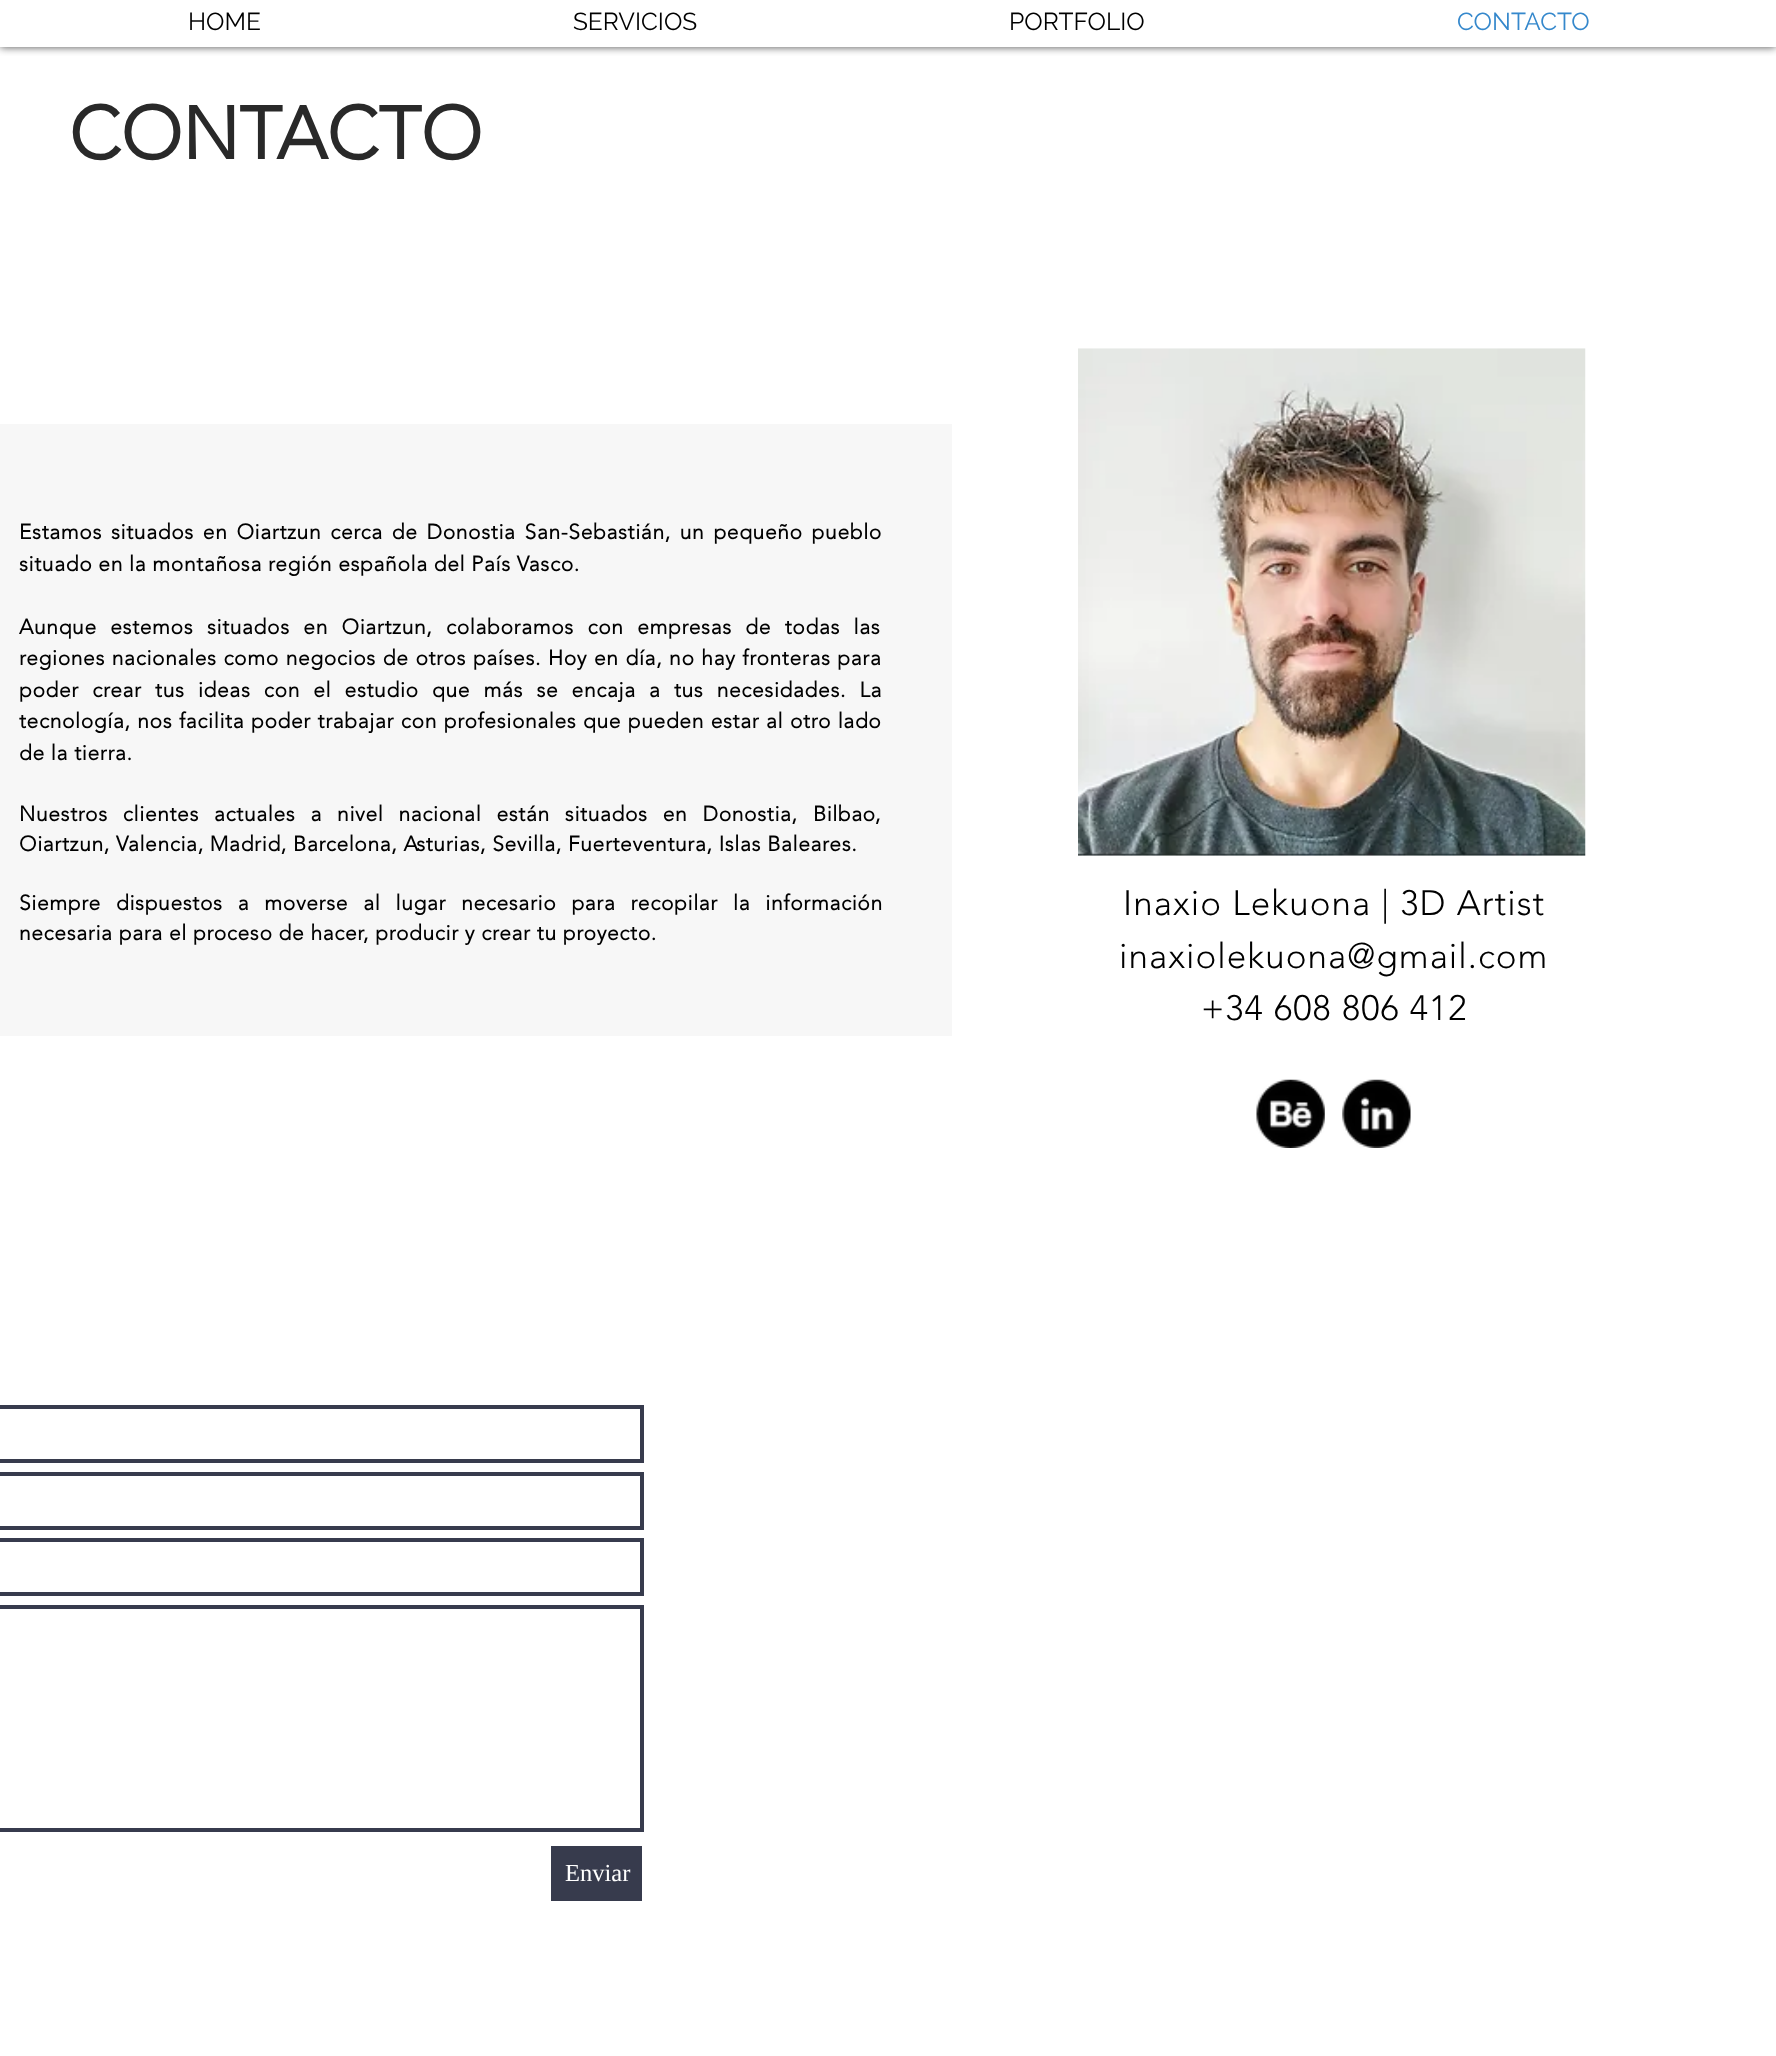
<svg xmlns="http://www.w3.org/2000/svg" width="1776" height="2056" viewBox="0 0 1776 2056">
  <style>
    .t1 { font: 24.5px Raleway; fill: #000; }
    .t2 { font: 24.5px Raleway; fill: #3588cc; }
    .t3 { font: bold 73.5px 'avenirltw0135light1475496'; fill: #292929; }
    .t4 { font: bold 21px 'avenirltw0135light1475496'; letter-spacing: 0.63px; fill: #000; }
    .t5 { font: bold 21px 'avenirltw0135light1475496'; letter-spacing: 0.5px; fill: #000; }
    .t6 { font: 300 35px 'avenirltw0135light1475496'; letter-spacing: 1.05px; fill: #000; }
    .t7 { font: 24.5px Liberation Serif; fill: #fff; }
  </style>
  <defs>
    <clipPath id="clip1"><rect x="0" y="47" width="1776" height="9"/></clipPath>
  </defs>
  <rect width="100%" height="100%" fill="#fff"/>
  <g clip-path="url(#clip1)">
    <rect x="0" y="0" width="1776" height="47" fill="#000000b3" filter="blur(4.5px)"/>
  </g>
  <text x="188" y="30" class="t1">HOME</text>
  <text x="573" y="30" class="t1">SERVICIOS</text>
  <text x="1009" y="30" class="t1">PORTFOLIO</text>
  <text x="1457" y="30" class="t2">CONTACTO</text>
  <text x="69" y="159" class="t3">CONTACTO</text>
  <rect x="0" y="424" width="952" height="612" fill="#f7f7f7"/>
  <text x="19" y="539" word-spacing="2.9" class="t4">Estamos situados en Oiartzun cerca de Donostia San-Sebastián, un pequeño pueblo</text>
  <text x="19" y="571" class="t4">situado en la montañosa región española del País Vasco.</text>
  <text x="19" y="634" word-spacing="7.5" class="t4">Aunque estemos situados en Oiartzun, colaboramos con empresas de todas las</text>
  <text x="19" y="665" word-spacing="0.75" class="t4">regiones nacionales como negocios de otros países. Hoy en día, no hay fronteras para</text>
  <text x="19" y="697" word-spacing="7.25" class="t4">poder crear tus ideas con el estudio que más se encaja a tus necesidades. La</text>
  <text x="19" y="728" word-spacing="0.6" class="t4">tecnología, nos facilita poder trabajar con profesionales que pueden estar al otro lado</text>
  <text x="19" y="760" class="t4">de la tierra.</text>
  <text x="19" y="821" word-spacing="9" class="t4">Nuestros clientes actuales a nivel nacional están situados en Donostia,</text>
  <text x="813" y="821" class="t5">Bilbao</text>
  <text x="875" y="821" class="t4">,</text>
  <text x="19" y="851" class="t4">Oiartzun, Valencia, Madrid, Barcelona, Asturias, Sevilla, Fuerteventura, Islas Baleares.</text>
  <text x="19" y="910" word-spacing="9" class="t4">Siempre dispuestos a moverse al lugar necesario para recopilar la información</text>
  <text x="19" y="940" class="t4">necesaria para el proceso de hacer, producir y crear tu proyecto.</text>
  <image x="1078" y="348" width="508" height="508" href="images/1.png"/>
  <text x="1123" y="915" class="t6">Inaxio Lekuona | 3D Artist</text>
  <text x="1119" y="968" class="t6">inaxiolekuona@gmail.com</text>
  <text x="1201" y="1020" class="t6">+34 608 806 412</text>
  <image x="1256" y="1079" width="69" height="69" href="images/2.png"/>
  <image x="1342" y="1079" width="69" height="69" href="images/3.png"/>
  <rect x="-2" y="1407" width="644" height="54" fill="none" stroke="#373b4d" stroke-width="4"/>
  <rect x="-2" y="1474" width="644" height="54" fill="none" stroke="#373b4d" stroke-width="4"/>
  <rect x="-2" y="1540" width="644" height="54" fill="none" stroke="#373b4d" stroke-width="4"/>
  <rect x="-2" y="1607" width="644" height="223" fill="none" stroke="#373b4d" stroke-width="4"/>
  <rect x="551" y="1846" width="91" height="55" fill="#373b4d"/>
  <text x="565" y="1881" class="t7">Enviar</text>
</svg>
